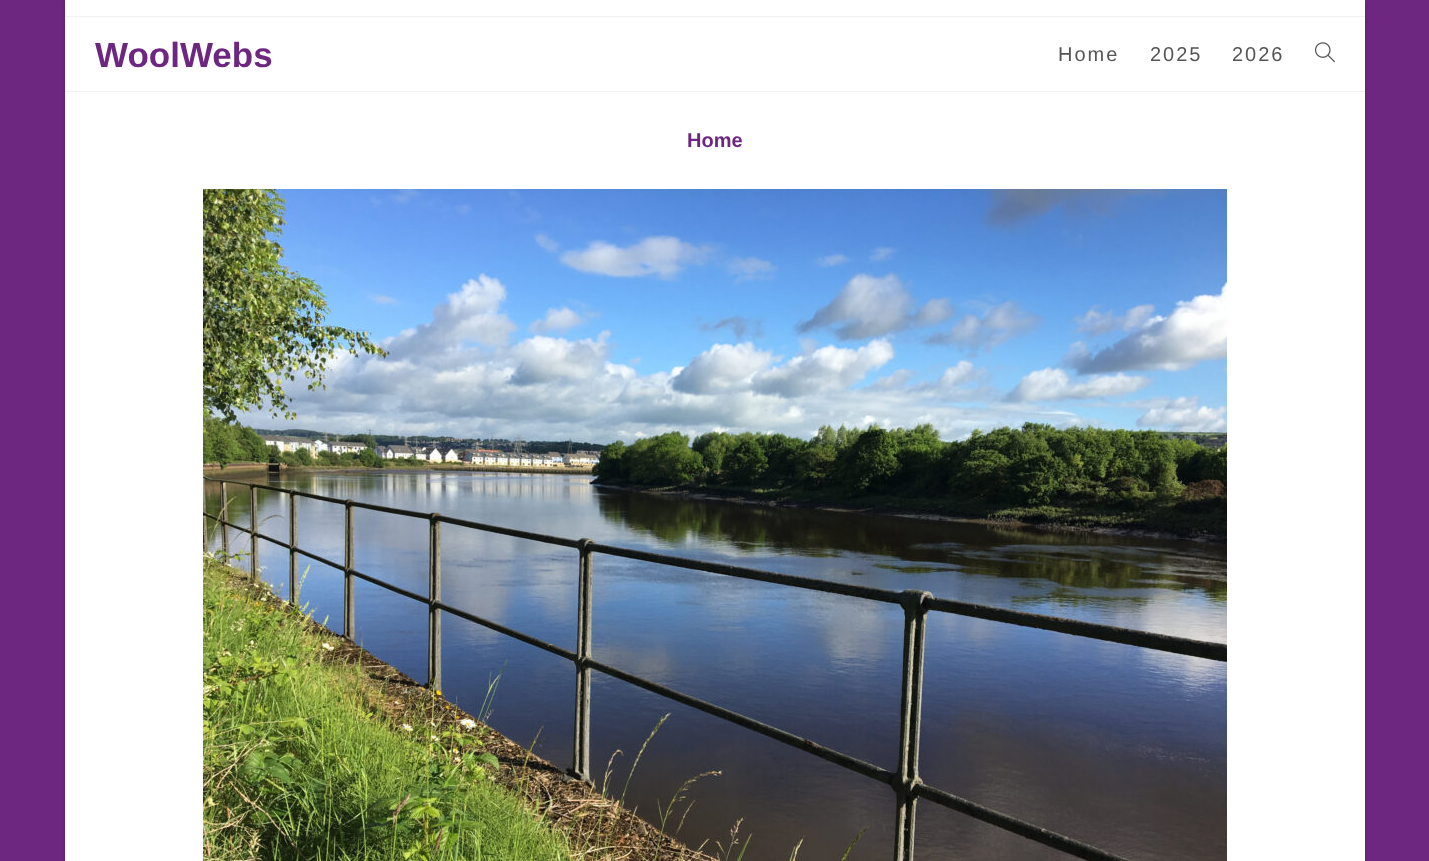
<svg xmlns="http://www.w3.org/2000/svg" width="1429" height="861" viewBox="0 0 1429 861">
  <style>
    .t1 { font: bold 35px Liberation Sans; fill: #6d2780; }
    .t2 { font: 20px Liberation Sans; letter-spacing: 2px; fill: #555; }
    .t3 { font: bold 20px Liberation Sans; fill: #6d2780; }
  </style>
  <rect width="100%" height="100%" fill="#6d2780"/>
  <rect x="65" y="1" width="1300" height="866" fill="#00000026" filter="blur(2px)"/>
  <rect x="65" y="0" width="1300" height="861" fill="#fff"/>
  <rect x="65" y="16" width="1300" height="1" fill="#f1f1f1"/>
  <rect x="65" y="91" width="1300" height="1" fill="#f1f1f1"/>
  <text x="95" y="67" class="t1">WoolWebs</text>
  <text x="1058" y="61" class="t2">Home</text>
  <text x="1150" y="61" class="t2">2025</text>
  <text x="1232" y="61" class="t2">2026</text>
  <image x="1315" y="42" width="20" height="21" href="images/1.png"/>
  <text x="687" y="147" class="t3">Home</text>
  <image x="203" y="189" width="1024" height="672" href="images/2.png"/>
</svg>
